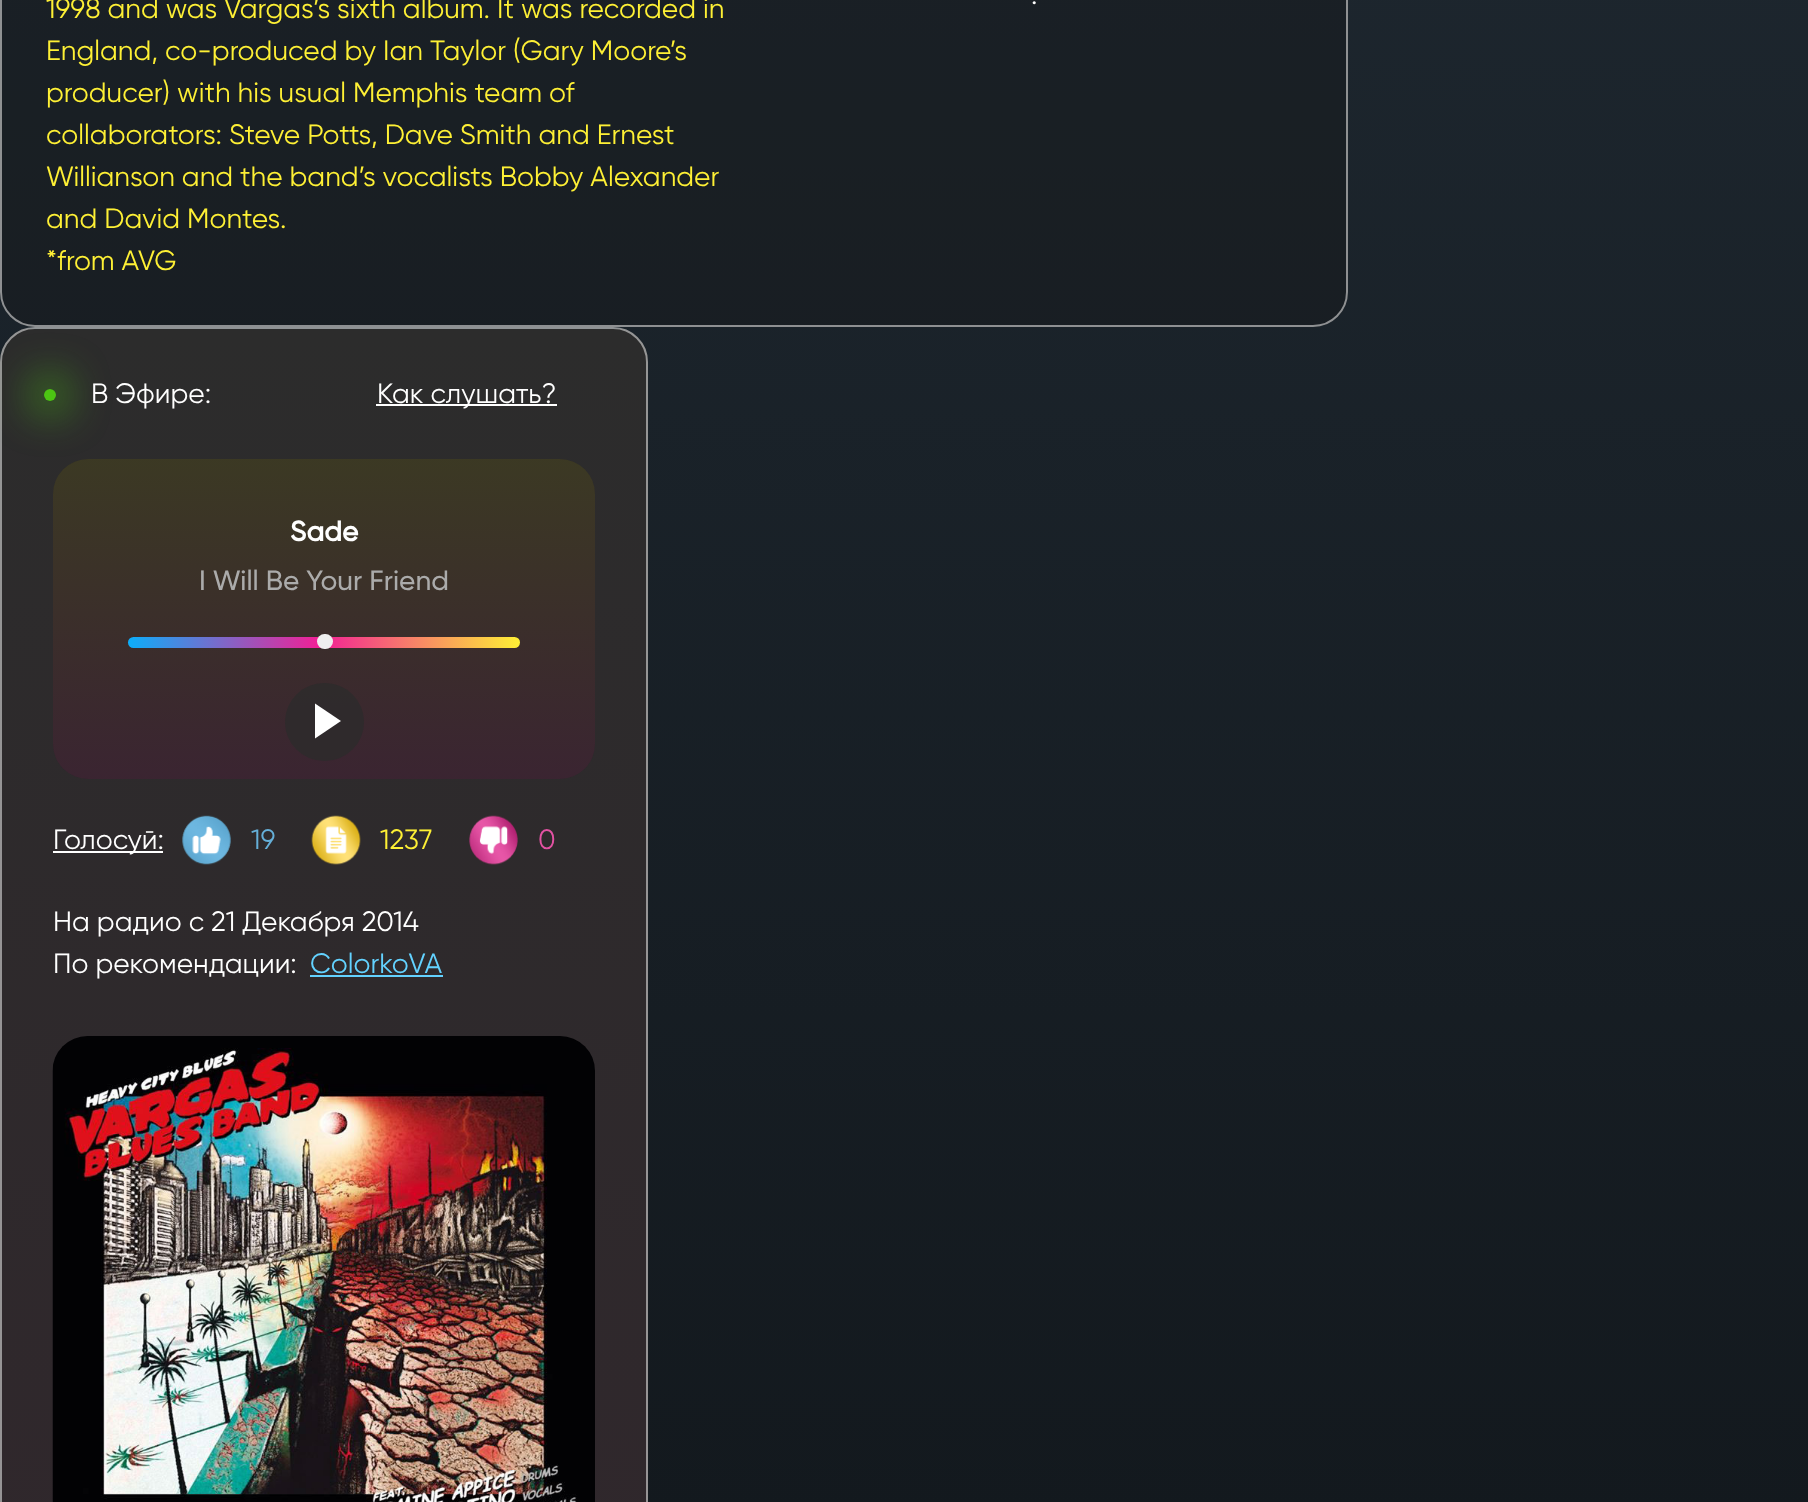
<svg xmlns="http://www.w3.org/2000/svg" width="1808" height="1502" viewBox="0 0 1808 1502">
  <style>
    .t1 { font: 28px Gilroy; fill: #fef035; }
    .t2 { font: 28px Gilroy; fill: #fff; }
    .t3 { font: bold 28px Gilroy; fill: #fff; }
    .t4 { font: 500 28px Gilroy; fill: #ababab; }
    .t5 { font: 28px Gilroy; fill: #65afd8; }
    .t6 { font: 28px Gilroy; fill: #e352a3; }
    .t7 { font: 28px Gilroy; fill: #63d2ff; }
  </style>
  <defs>
    <linearGradient id="g1" gradientUnits="userSpaceOnUse" x1="905" y1="-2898" x2="905" y2="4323"><stop offset="0" stop-color="#2e3d4a"/><stop offset="1" stop-color="#020202"/></linearGradient>
    <clipPath id="clip1"><rect x="0" y="327" width="648" height="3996" rx="35"/></clipPath>
    <linearGradient id="g2" gradientUnits="userSpaceOnUse" x1="324" y1="329" x2="324" y2="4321"><stop offset="0" stop-color="#2c2c2c"/><stop offset="1" stop-color="#381d2c"/></linearGradient>
    <linearGradient id="g3" gradientUnits="userSpaceOnUse" x1="324" y1="459" x2="324" y2="779"><stop offset="0" stop-color="#fceb0c" stop-opacity="0.1"/><stop offset="1" stop-color="#f22096" stop-opacity="0.1"/></linearGradient>
    <clipPath id="clip2"><path d="M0 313H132V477H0ZM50 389C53.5 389 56 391.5 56 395C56 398.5 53.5 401 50 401C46.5 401 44 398.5 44 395C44 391.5 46.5 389 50 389Z" clip-rule="evenodd"/></clipPath>
    <linearGradient id="g4" gradientUnits="userSpaceOnUse" x1="118" y1="642" x2="520" y2="642"><stop offset="0" stop-color="#00b5ff"/><stop offset="0.5" stop-color="#f22096"/><stop offset="1" stop-color="#fef035"/></linearGradient>
  </defs>
  <rect width="100%" height="100%" fill="#fff"/>
  <rect x="0" y="0" width="1808" height="1502" fill="url(#g1)"/>
  <rect x="0" y="-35" width="1348" height="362" rx="35" fill="#14161654"/>
  <rect x="1" y="-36" width="1346" height="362" rx="34" fill="none" stroke="#cacacaab" stroke-width="2"/>
  <text x="46" y="18" class="t1">1998 and was Vargas’s sixth album. It was recorded in</text>
  <text x="46" y="60" class="t1">England, co-produced by Ian Taylor (Gary Moore’s</text>
  <text x="46" y="102" class="t1">producer) with his usual Memphis team of</text>
  <text x="46" y="144" class="t1">collaborators: Steve Potts, Dave Smith and Ernest</text>
  <text x="46" y="186" class="t1">Willianson and the band’s vocalists Bobby Alexander</text>
  <text x="46" y="228" class="t1">and David Montes.</text>
  <text x="46" y="270" class="t1">*from AVG</text>
  <text x="1031" y="4" class="t2">.</text>
  <g clip-path="url(#clip1)">
    <rect x="0" y="329" width="648" height="1173" fill="url(#g2)"/>
  </g>
  <rect x="1" y="328" width="646" height="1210" rx="34" fill="none" stroke="#cacacaab" stroke-width="2"/>
  <rect x="53" y="459" width="542" height="320" rx="35" fill="#262526"/>
  <rect x="53" y="459" width="542" height="320" rx="35" fill="url(#g3)"/>
  <g clip-path="url(#clip2)">
    <rect x="35" y="380" width="30" height="30" rx="15" fill="#4cc513" filter="blur(22px)"/>
  </g>
  <circle cx="50" cy="395" r="6" fill="#4cc513"/>
  <text x="91" y="403" class="t2">В Эфире:</text>
  <rect x="376" y="404" width="181" height="2" fill="#fff"/>
  <text x="377" y="403" class="t2">Как слушать?</text>
  <text x="290" y="541" class="t3">Sade</text>
  <text x="199" y="590" class="t4">I Will Be Your Friend</text>
  <rect x="128" y="637" width="392" height="11" rx="5.5" fill="url(#g4)"/>
  <rect x="317" y="634" width="16" height="15" rx="7.5" fill="#efefef"/>
  <rect x="285" y="683" width="79" height="78" rx="39" fill="#2c2c2cc2"/>
  <path d="M315 738.5V703.5L341 721Z" fill="#fff"/>
  <rect x="53" y="851" width="110" height="2" fill="#fff"/>
  <text x="53" y="849" class="t2">Голосуй:</text>
  <image x="182" y="815" width="49" height="50" href="images/1.png"/>
  <text x="251" y="849" class="t5">19</text>
  <image x="311" y="815" width="50" height="50" href="images/2.png"/>
  <text x="380" y="849" class="t1">1237</text>
  <image x="469" y="815" width="49" height="50" href="images/3.png"/>
  <text x="538" y="849" class="t6">0</text>
  <text x="53" y="931" class="t2">На радио с 21 Декабря 2014</text>
  <text x="53" y="973" class="t2">По рекомендации:</text>
  <text x="310" y="973" class="t7">ColorkoVA</text>
  <rect x="310" y="975" width="133" height="2" fill="#63d2ff"/>
  <image x="52" y="1036" width="543" height="466" href="images/4.png"/>
</svg>
